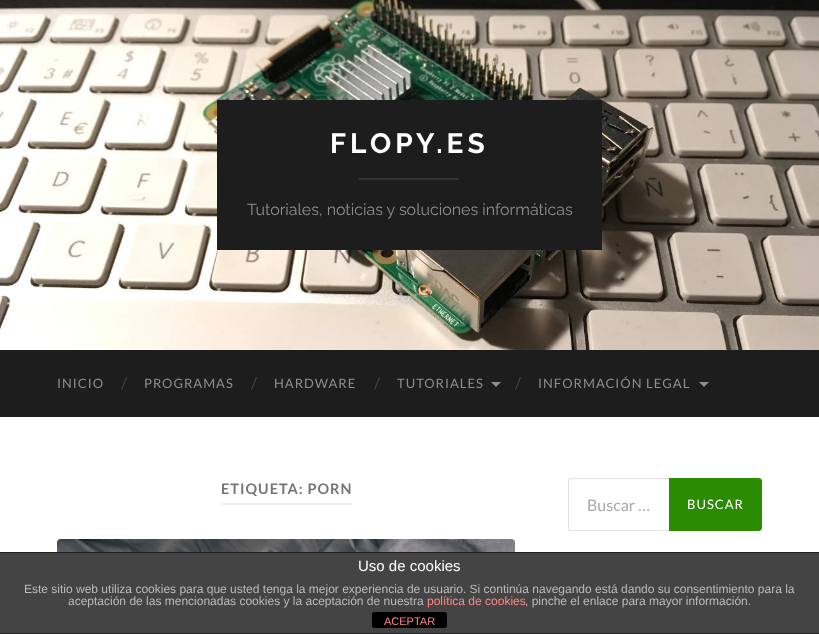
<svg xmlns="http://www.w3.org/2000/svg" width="819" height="634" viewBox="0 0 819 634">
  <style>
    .t1 { font: 100 28px Raleway; letter-spacing: 4px; fill: #fff; }
    .t2 { font: 100 16px 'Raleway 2'; fill: #8e8e8e; }
    .t3 { font: 13px Lato; letter-spacing: 1px; fill: #8e8e8e; }
    .t4 { font: 16px Lato; fill: #444; }
    .t5 { font: bold 14.5px Lato; letter-spacing: 1px; fill: #767676; }
    .t6 { font: 16px Lato; fill: #a9a9a9; }
    .t7 { font: 13px Lato; letter-spacing: 1px; fill: #fff; }
    .t8 { font: 15px Liberation Sans; fill: #fff; }
    .t9 { font: 12px Liberation Sans; fill: #bbb; }
    .t10 { font: 12px Liberation Sans; fill: #f88; }
    .t11 { font: 11px Liberation Sans; fill: #f88; }
  </style>
  <rect width="100%" height="100%" fill="#fff"/>
  <image x="0" y="0" width="819" height="350" href="images/1.png"/>
  <rect x="217" y="100" width="385" height="150" fill="#1d1d1d"/>
  <text x="330" y="153" class="t1">FLOPY.ES</text>
  <rect x="359" y="178" width="100" height="2" fill="#343434"/>
  <text x="247" y="215" class="t2">Tutoriales, noticias y soluciones informáticas</text>
  <rect x="0" y="350" width="819" height="67" fill="#1d1d1d"/>
  <text x="57" y="388" class="t3">INICIO</text>
  <text x="121" y="389" class="t4">/</text>
  <text x="144" y="388" class="t3">PROGRAMAS</text>
  <text x="251" y="389" class="t4">/</text>
  <text x="274" y="388" class="t3">HARDWARE</text>
  <text x="374" y="389" class="t4">/</text>
  <text x="397" y="388" class="t3">TUTORIALES</text>
  <path d="M491 382H501L496 387Z" fill="#8e8e8e"/>
  <text x="515" y="389" class="t4">/</text>
  <text x="538" y="388" class="t3">INFORMACIÓN LEGAL</text>
  <path d="M699 382H709L704 387Z" fill="#8e8e8e"/>
  <rect x="221" y="503" width="131" height="2" fill="#eee"/>
  <text x="221" y="494" class="t5">ETIQUETA: PORN</text>
  <image x="57" y="539" width="458" height="13" href="images/2.png"/>
  <path d="M571 478H669V531H571C569 531 568 530 568 528V481C568 479 569 478 571 478ZM571 479H669V530H571C570 530 569 529 569 528V481C569 480 570 479 571 479Z" fill="#e1e1e3" fill-rule="evenodd"/>
  <text x="587" y="511" class="t6">Buscar …</text>
  <path d="M669 478H759C760.5 478 762 479.5 762 481V528C762 529.5 760.5 531 759 531H669Z" fill="#2b8c01"/>
  <text x="687" y="509" class="t7">BUSCAR</text>
  <rect x="0" y="553" width="819" height="80" fill="#444"/>
  <rect x="0" y="552" width="819" height="1" fill="#222"/>
  <rect x="0" y="633" width="819" height="1" fill="#222"/>
  <text x="358" y="571" class="t8">Uso de cookies</text>
  <text x="24" y="593" class="t9">Este sitio web utiliza cookies para que usted tenga la mejor experiencia de usuario. Si continúa navegando está dando su consentimiento para la</text>
  <text x="68" y="605" class="t9">aceptación de las mencionadas cookies y la aceptación de nuestra</text>
  <text x="427" y="605" class="t10">política de cookies</text>
  <text x="525" y="605" class="t9">, pinche el enlace para mayor información.</text>
  <rect x="372" y="612" width="75" height="16" rx="3" fill="#000"/>
  <text x="384" y="625" class="t11">ACEPTAR</text>
</svg>
